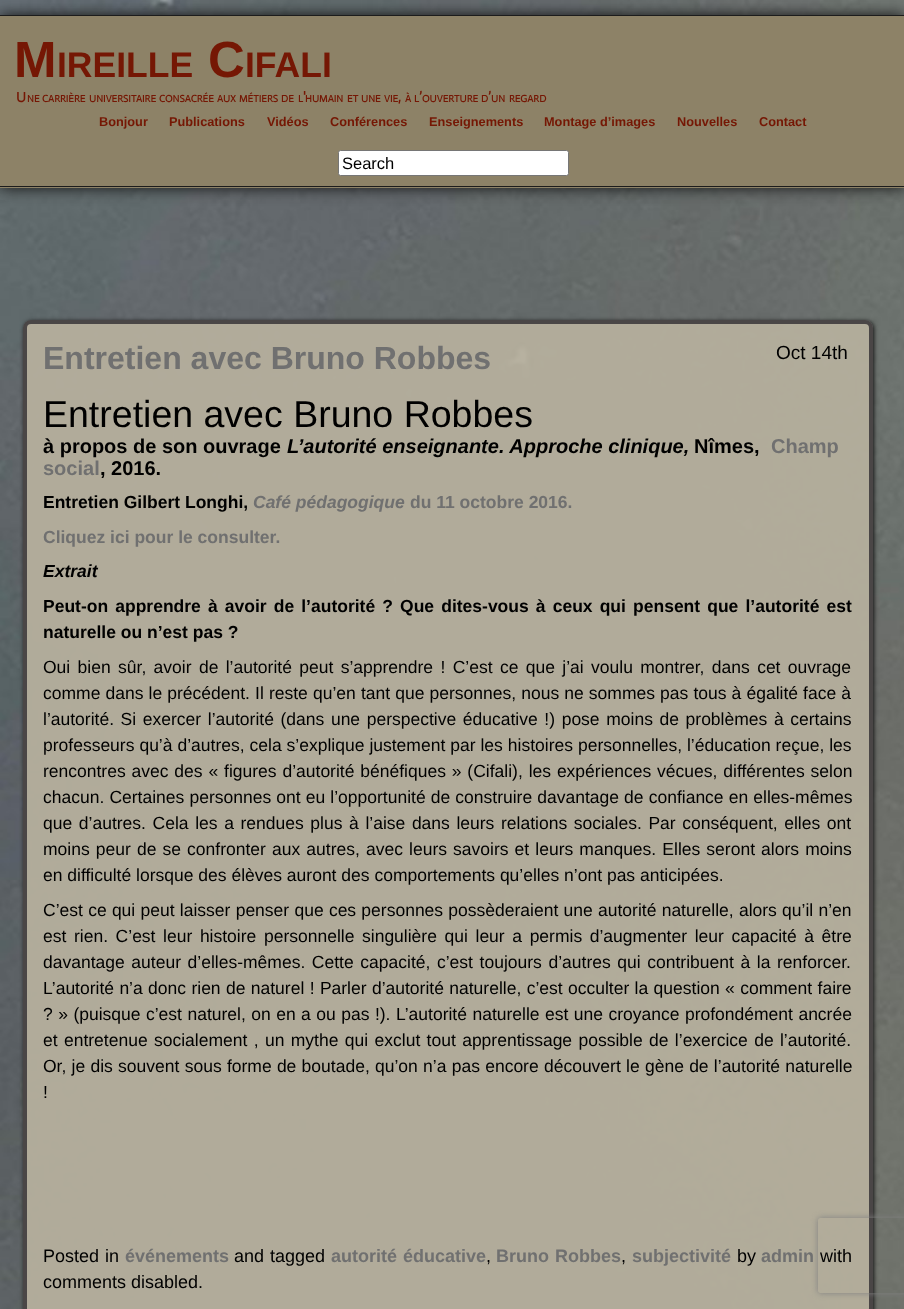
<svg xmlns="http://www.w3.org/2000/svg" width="904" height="1309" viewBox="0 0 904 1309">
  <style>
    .t1 { font: bold 51px Liberation Sans; fill: #751704; }
    .t2 { font: bold 35.5px Liberation Sans; fill: #751704; }
    .t3 { font: bold 14px Actor; fill: #751704; }
    .t4 { font: bold 10px Actor; fill: #751704; }
    .t5 { font: bold 12.75px Liberation Sans; fill: #751704; }
    .t6 { font: 16.5px Liberation Sans; fill: #000; }
    .t7 { font: bold 32px Liberation Sans; fill: #707070; }
    .t8 { font: 19px Liberation Sans; fill: #000; }
    .t9 { font: 37.5px Liberation Sans; fill: #000; }
    .t10 { font: bold 20px Liberation Sans; fill: #000; }
    .t11 { font: italic bold 20px Liberation Sans; fill: #000; }
    .t12 { font: bold 20px Liberation Sans; fill: #707070; }
    .t13 { font: bold 17.5px Liberation Sans; fill: #000; }
    .t14 { font: italic bold 17.5px Liberation Sans; fill: #707070; }
    .t15 { font: bold 17.5px Liberation Sans; fill: #707070; }
    .t16 { font: italic bold 17.5px Liberation Sans; fill: #000; }
    .t17 { font: 17.5px Liberation Sans; fill: #000; }
    .t18 { font: 18px Liberation Sans; fill: #000; }
    .t19 { font: bold 18px Liberation Sans; fill: #707070; }
  </style>
  <defs>
    <clipPath id="clip1"><path d="M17 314H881V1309H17ZM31 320H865C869.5 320 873 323.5 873 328V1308C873 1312.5 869.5 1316 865 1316H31C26.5 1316 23 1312.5 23 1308V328C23 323.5 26.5 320 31 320Z" clip-rule="evenodd"/></clipPath>
    <clipPath id="clip2"><path d="M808 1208H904V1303H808ZM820.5 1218H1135.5C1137 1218 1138 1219 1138 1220.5V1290.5C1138 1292 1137 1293 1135.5 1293H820.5C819 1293 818 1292 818 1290.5V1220.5C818 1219 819 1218 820.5 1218Z" clip-rule="evenodd"/></clipPath>
  </defs>
  <rect width="100%" height="100%" fill="#fff"/>
  <image x="0" y="0" width="904" height="1309" href="images/1.png"/>
  <rect x="0" y="15" width="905" height="173" fill="#111" filter="blur(7.5px)"/>
  <rect x="0" y="16" width="904" height="172" fill="#8d8267"/>
  <rect x="0" y="15" width="904" height="1" fill="#1c1c1c"/>
  <rect x="0" y="186" width="904" height="1" fill="#1c1c1c"/>
  <text x="14" y="77" class="t1">M</text>
  <text x="57" y="77" class="t2">IREILLE</text>
  <text x="208" y="77" class="t1">C</text>
  <text x="245" y="77" class="t2">IFALI</text>
  <text x="16" y="102" class="t3">U</text>
  <text x="27" y="102" class="t4">NE</text>
  <text x="42" y="102" class="t4">CARRIÈRE</text>
  <text x="89" y="102" class="t4">UNIVERSITAIRE</text>
  <text x="159" y="102" class="t4">CONSACRÉE</text>
  <text x="217" y="102" class="t4">AUX</text>
  <text x="239" y="102" class="t4">MÉTIERS</text>
  <text x="281" y="102" class="t4">DE</text>
  <text x="298" y="102" class="t4">L</text>
  <text x="303" y="102" class="t3">'</text>
  <text x="305" y="102" class="t4">HUMAIN</text>
  <text x="347" y="102" class="t4">ET</text>
  <text x="361" y="102" class="t4">UNE</text>
  <text x="384" y="102" class="t4">VIE</text>
  <text x="398" y="102" class="t3">,</text>
  <text x="405" y="102" class="t4">À</text>
  <text x="414" y="102" class="t4">L</text>
  <text x="419" y="102" class="t3">’</text>
  <text x="422" y="102" class="t4">OUVERTURE</text>
  <text x="481" y="102" class="t4">D</text>
  <text x="488" y="102" class="t3">’</text>
  <text x="491" y="102" class="t4">UN</text>
  <text x="509" y="102" class="t4">REGARD</text>
  <text x="99" y="126" class="t5">Bonjour</text>
  <text x="169" y="126" class="t5">Publications</text>
  <text x="267" y="126" class="t5">Vidéos</text>
  <text x="330" y="126" class="t5">Conférences</text>
  <text x="429" y="126" class="t5">Enseignements</text>
  <text x="544" y="126" class="t5">Montage d’images</text>
  <text x="677" y="126" class="t5">Nouvelles</text>
  <text x="759" y="126" class="t5">Contact</text>
  <rect x="338.5" y="150.5" width="230" height="25" rx="2" fill="#fff" stroke="#767676"/>
  <text x="342" y="169" class="t6">Search</text>
  <g clip-path="url(#clip1)">
    <rect x="24" y="321" width="850" height="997" rx="8" fill="#111" filter="blur(2px)"/>
  </g>
  <rect x="25" y="322" width="846" height="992" rx="6" fill="#b5af9df2" stroke="#4a4646" stroke-width="4"/>
  <text x="43" y="369" class="t7">Entretien avec Bruno Robbes</text>
  <text x="776" y="359" class="t8">Oct 14th</text>
  <text x="43" y="427" class="t9">Entretien avec Bruno Robbes</text>
  <text x="43" y="453" class="t10">à propos de son ouvrage</text>
  <text x="287" y="453" class="t11">L’autorité enseignante. Approche clinique,</text>
  <text x="694" y="453" class="t10">Nîmes,</text>
  <text x="771" y="453" class="t12">Champ</text>
  <text x="43" y="475" class="t12">social</text>
  <text x="100" y="475" class="t10">, 2016.</text>
  <text x="43" y="508" class="t13">Entretien Gilbert Longhi,</text>
  <text x="253" y="508" class="t14">Café pédagogique</text>
  <text x="410" y="508" class="t15">du 11 octobre 2016.</text>
  <text x="43" y="543" class="t15">Cliquez ici pour le consulter.</text>
  <text x="43" y="577" class="t16">Extrait</text>
  <text x="43" y="612" word-spacing="2.25" class="t13">Peut-on apprendre à avoir de l’autorité ? Que dites-vous à ceux qui pensent que l’autorité est</text>
  <text x="43" y="638" class="t13">naturelle ou n’est pas ?</text>
  <text x="43" y="673" word-spacing="2.5" class="t17">Oui bien sûr, avoir de l’autorité peut s’apprendre ! C’est ce que j’ai voulu montrer, dans cet ouvrage</text>
  <text x="43" y="699" word-spacing="0.25" class="t17">comme dans le précédent. Il reste qu’en tant que personnes, nous ne sommes pas tous à égalité face à</text>
  <text x="43" y="725" word-spacing="1.75" class="t17">l’autorité. Si exercer l’autorité (dans une perspective éducative !) pose moins de problèmes à certains</text>
  <text x="43" y="751" word-spacing="0.1" class="t17">professeurs qu’à d’autres, cela s’explique justement par les histoires personnelles, l’éducation reçue, les</text>
  <text x="43" y="777" word-spacing="1" class="t17">rencontres avec des « figures d’autorité bénéfiques » (Cifali), les expériences vécues, différentes selon</text>
  <text x="43" y="803" word-spacing="0.25" class="t17">chacun. Certaines personnes ont eu l’opportunité de construire davantage de confiance en elles-mêmes</text>
  <text x="43" y="829" word-spacing="1.75" class="t17">que d’autres. Cela les a rendues plus à l’aise dans leurs relations sociales. Par conséquent, elles ont</text>
  <text x="43" y="855" word-spacing="1.25" class="t17">moins peur de se confronter aux autres, avec leurs savoirs et leurs manques. Elles seront alors moins</text>
  <text x="43" y="881" class="t17">en difficulté lorsque des élèves auront des comportements qu’elles n’ont pas anticipées.</text>
  <text x="43" y="916" word-spacing="0.4" class="t17">C’est ce qui peut laisser penser que ces personnes possèderaient une autorité naturelle, alors qu’il n’en</text>
  <text x="43" y="942" word-spacing="2.75" class="t17">est rien. C’est leur histoire personnelle singulière qui leur a permis d’augmenter leur capacité à être</text>
  <text x="43" y="968" word-spacing="1.75" class="t17">davantage auteur d’elles-mêmes. Cette capacité, c’est toujours d’autres qui contribuent à la renforcer.</text>
  <text x="43" y="994" word-spacing="0.5" class="t17">L’autorité n’a donc rien de naturel ! Parler d’autorité naturelle, c’est occulter la question « comment faire</text>
  <text x="43" y="1020" word-spacing="0.6" class="t17">? » (puisque c’est naturel, on en a ou pas !). L’autorité naturelle est une croyance profondément ancrée</text>
  <text x="43" y="1046" word-spacing="1.5" class="t17">et entretenue socialement , un mythe qui exclut tout apprentissage possible de l’exercice de l’autorité.</text>
  <text x="43" y="1072" word-spacing="0.4" class="t17">Or, je dis souvent sous forme de boutade, qu’on n’a pas encore découvert le gène de l’autorité naturelle</text>
  <text x="43" y="1098" class="t17">!</text>
  <text x="43" y="1262" word-spacing="1" class="t18">Posted in</text>
  <text x="125" y="1262" class="t19">événements</text>
  <text x="234" y="1262" word-spacing="1" class="t18">and tagged</text>
  <text x="331" y="1262" word-spacing="1" class="t19">autorité éducative</text>
  <text x="486" y="1262" class="t18">,</text>
  <text x="496" y="1262" word-spacing="1" class="t19">Bruno Robbes</text>
  <text x="621" y="1262" class="t18">,</text>
  <text x="632" y="1262" class="t19">subjectivité</text>
  <text x="737" y="1262" class="t18">by</text>
  <text x="761" y="1262" class="t19">admin</text>
  <text x="820" y="1262" class="t18">with</text>
  <text x="43" y="1288" class="t18">comments disabled.</text>
  <g clip-path="url(#clip2)">
    <rect x="818" y="1218" width="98" height="75" rx="2.5" fill="#808080" filter="blur(3px)"/>
  </g>
</svg>
